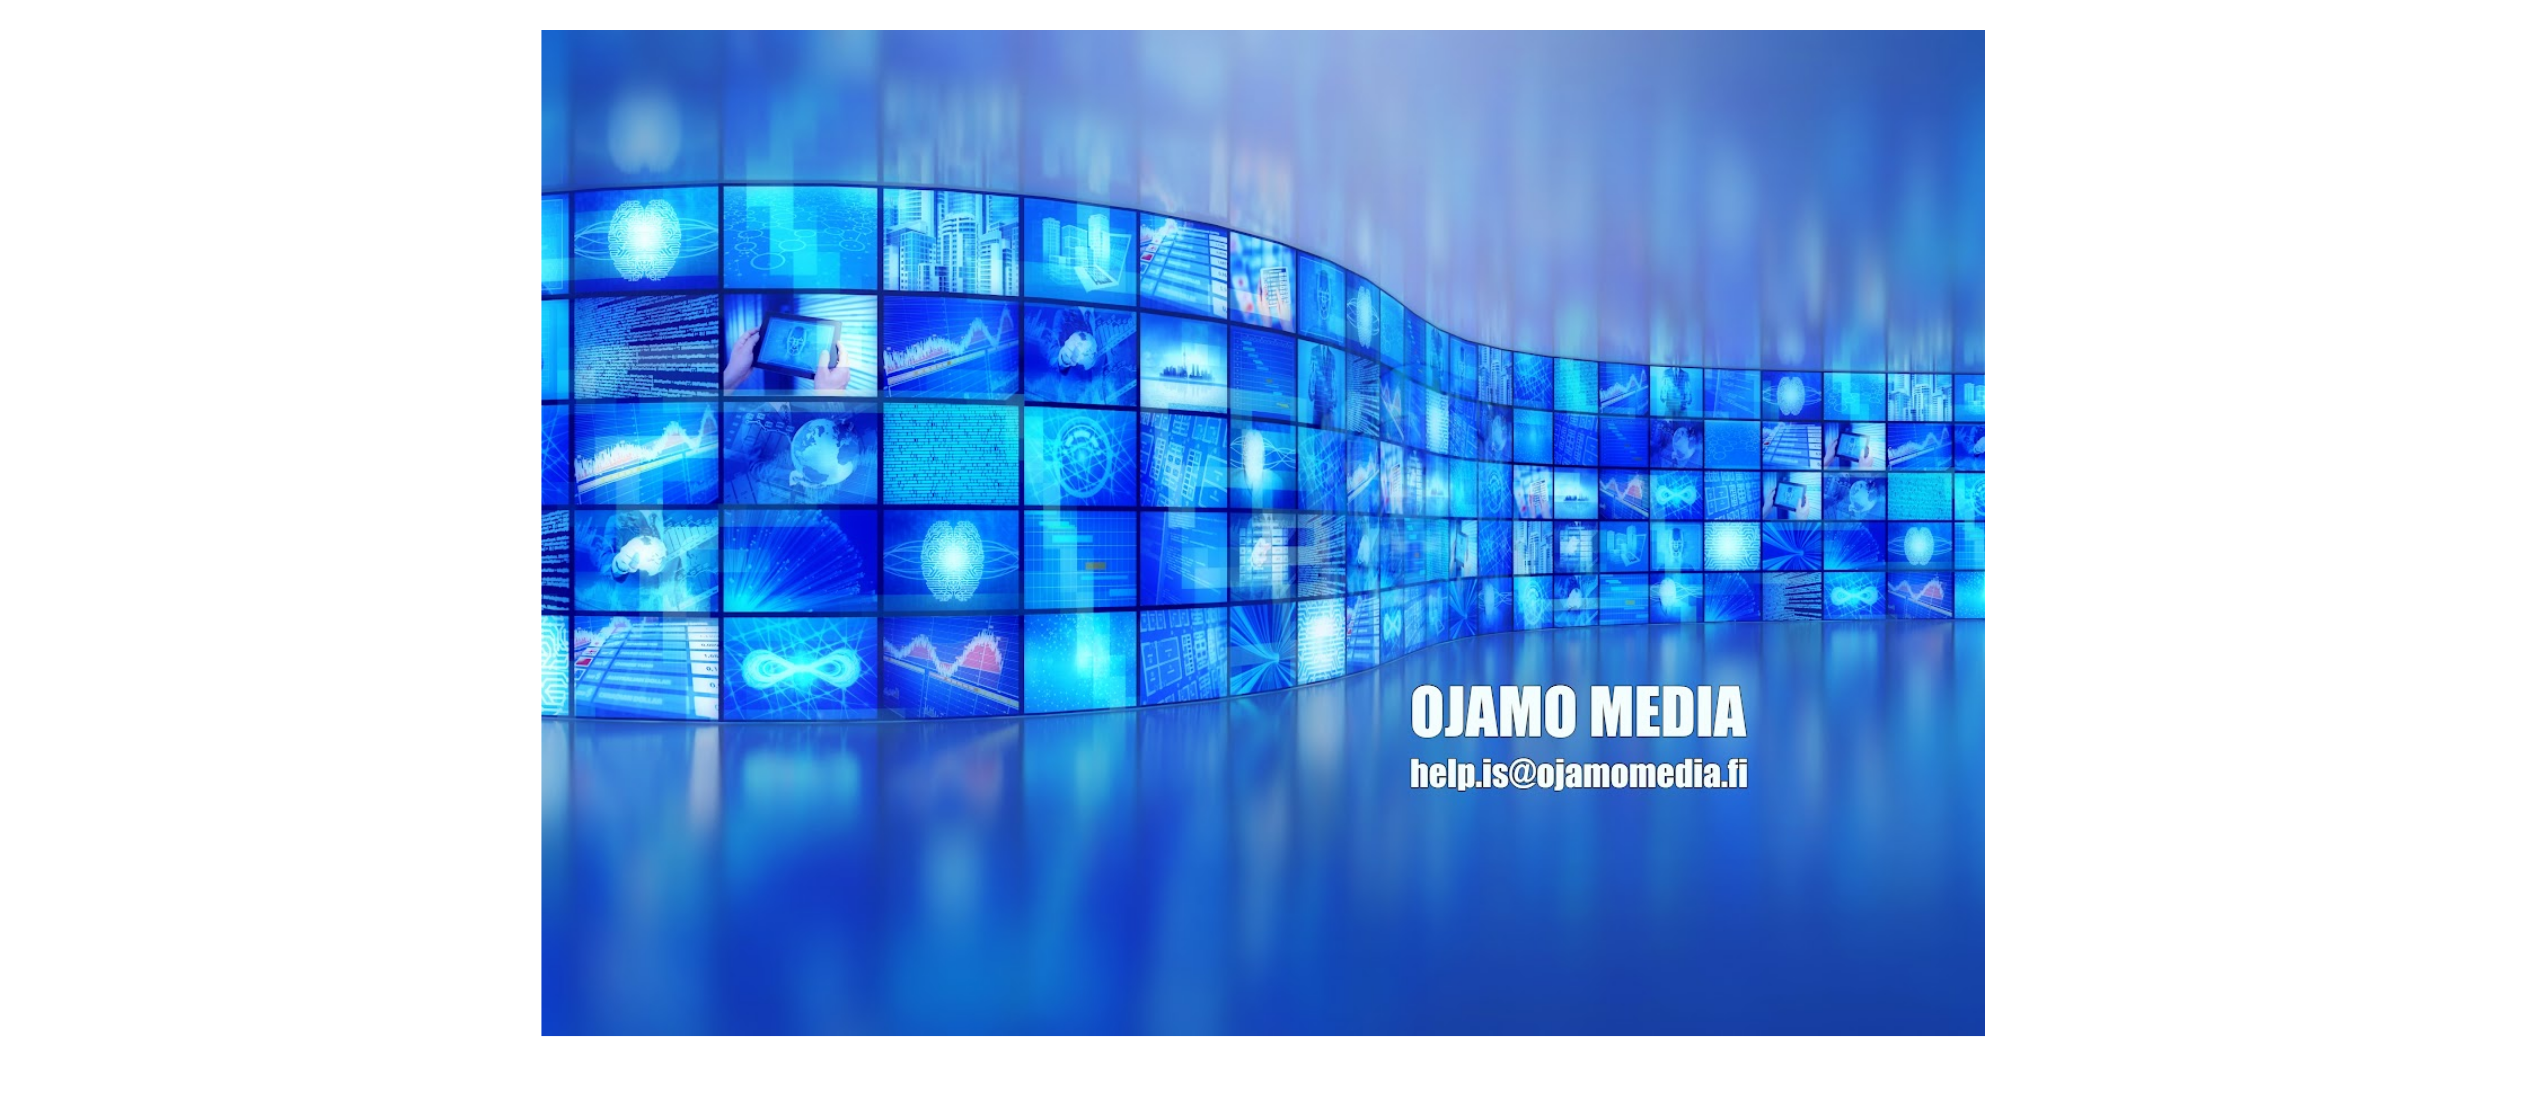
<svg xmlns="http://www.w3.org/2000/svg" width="2526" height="1096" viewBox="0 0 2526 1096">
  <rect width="100%" height="100%" fill="#fff"/>
  <image x="541" y="30" width="1444" height="1007" href="images/1.png"/>
</svg>
